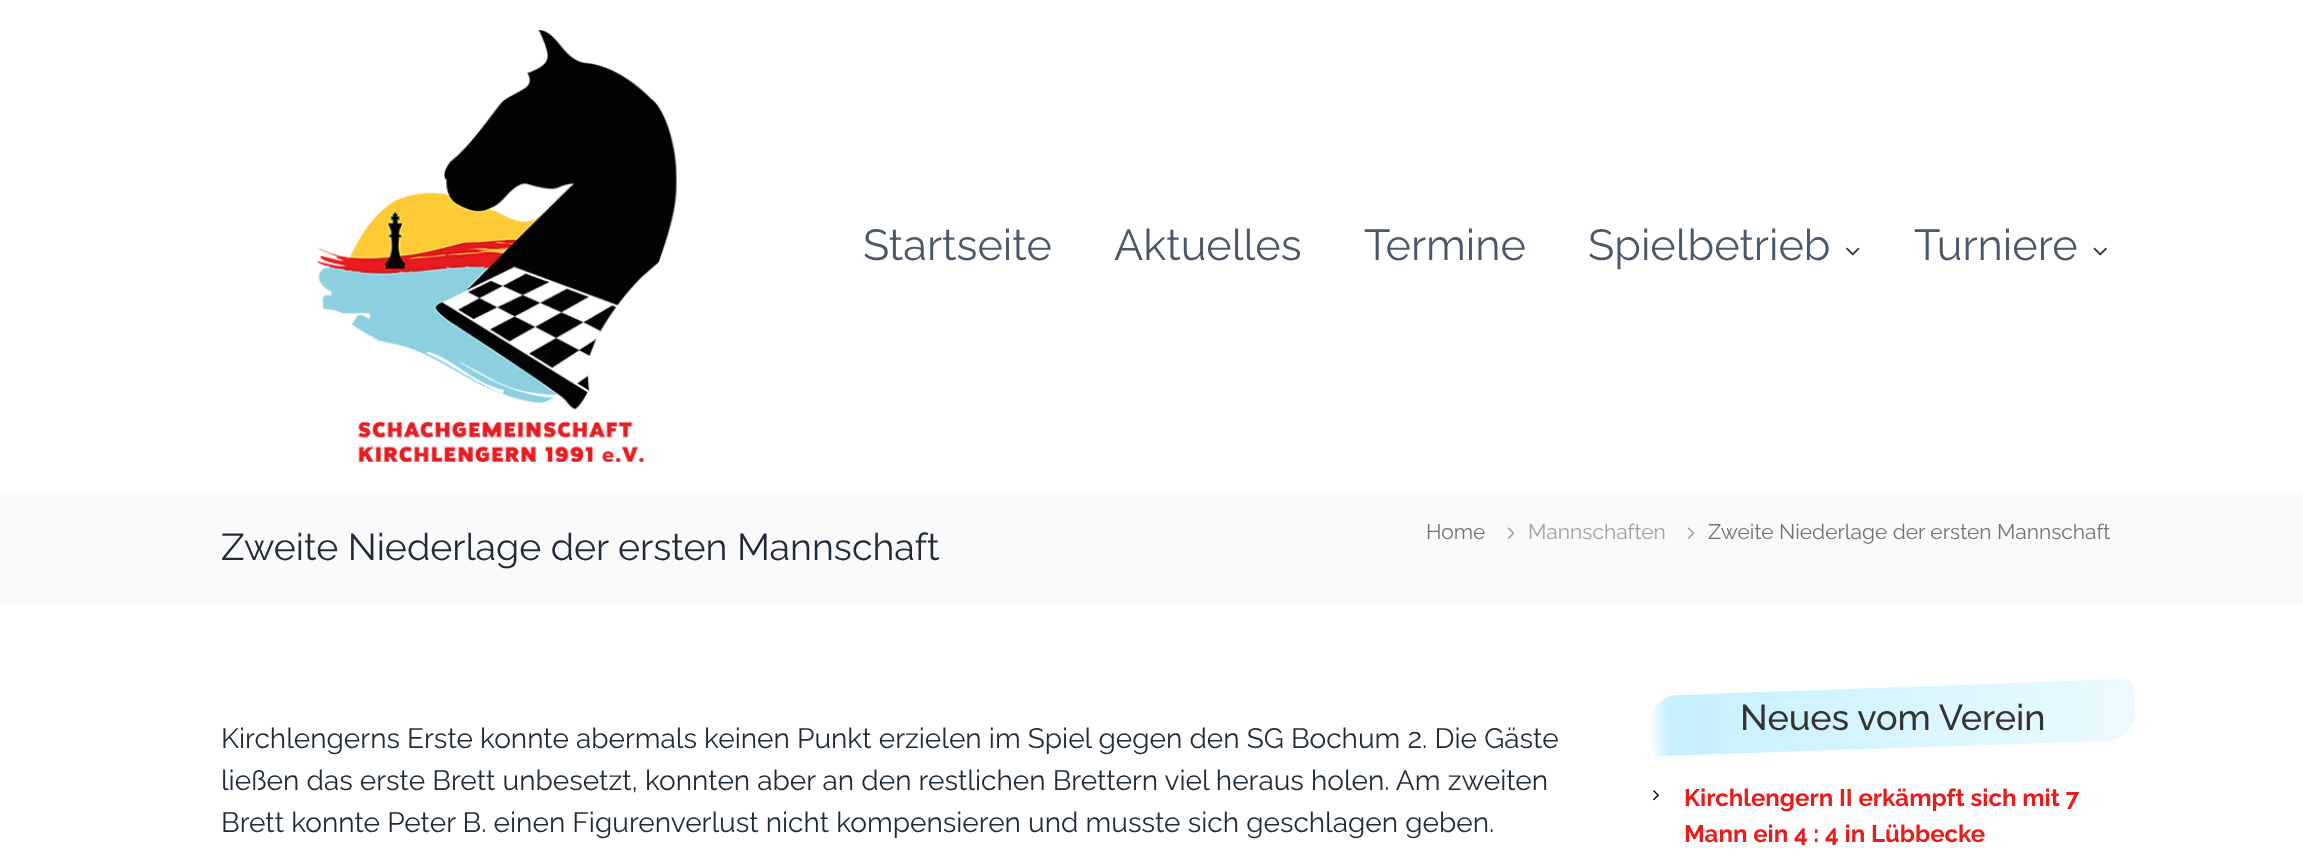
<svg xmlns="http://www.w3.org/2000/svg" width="2303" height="865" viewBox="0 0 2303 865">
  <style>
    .t1 { font: 43.25px Raleway; fill: #4c5867; }
    .t2 { font: 37.5px Raleway; fill: #212b38; }
    .t3 { font: 21px Raleway; fill: #737373; }
    .t4 { font: 21px Raleway; fill: #a1a1a1; }
    .t5 { font: 28px Raleway; fill: #212b38; }
    .t6 { font: 500 36px Raleway; fill: #333; }
    .t7 { font: bold 24px Raleway; fill: #ed1a1a; }
  </style>
  <defs>
    <linearGradient id="g1" gradientUnits="userSpaceOnUse" x1="1650" y1="726" x2="2135" y2="709"><stop offset="0" stop-color="#f7fdff"/><stop offset="0.04" stop-color="#c6f0ff"/><stop offset="1" stop-color="#ecfaff"/></linearGradient>
  </defs>
  <rect width="100%" height="100%" fill="#fff"/>
  <image x="316" y="30" width="361" height="432" href="images/1.png"/>
  <text x="863" y="260" class="t1">Startseite</text>
  <text x="1114" y="260" class="t1">Aktuelles</text>
  <text x="1364" y="260" class="t1">Termine</text>
  <text x="1588" y="260" class="t1">Spielbetrieb</text>
  <image x="1846" y="247" width="14" height="9" href="images/2.png"/>
  <text x="1914" y="260" class="t1">Turniere</text>
  <image x="2093" y="247" width="14" height="9" href="images/3.png"/>
  <rect x="0" y="492" width="2303" height="113" fill="#fafafa"/>
  <text x="221" y="560" class="t2">Zweite Niederlage der ersten Mannschaft</text>
  <text x="1426" y="539" class="t3">Home</text>
  <image x="1507" y="527" width="8" height="12" href="images/4.png"/>
  <text x="1528" y="539" class="t4">Mannschaften</text>
  <image x="1687" y="527" width="8" height="12" href="images/4.png"/>
  <text x="1708" y="539" class="t3">Zweite Niederlage der ersten Mannschaft</text>
  <text x="221" y="748" class="t5">Kirchlengerns Erste konnte abermals keinen Punkt erzielen im Spiel gegen den SG Bochum 2. Die Gäste</text>
  <text x="221" y="790" class="t5">ließen das erste Brett unbesetzt, konnten aber an den restlichen Brettern viel heraus holen. Am zweiten</text>
  <text x="221" y="832" class="t5">Brett konnte Peter B. einen Figurenverlust nicht kompensieren und musste sich geschlagen geben.</text>
  <path d="M1678 695L2123 679C2129 679 2134 684 2134 690L2135 711C2135 727 2123 740 2107 741L1662 756C1656 757 1651 752 1651 746L1650 724C1650 709 1662 695 1678 695Z" fill="url(#g1)"/>
  <text x="1740" y="730" class="t6">Neues vom Verein</text>
  <image x="1653" y="790" width="6" height="11" href="images/5.png"/>
  <text x="1684" y="806" class="t7">Kirchlengern II erkämpft sich mit 7</text>
  <text x="1684" y="842" class="t7">Mann ein 4 : 4 in Lübbecke</text>
</svg>
